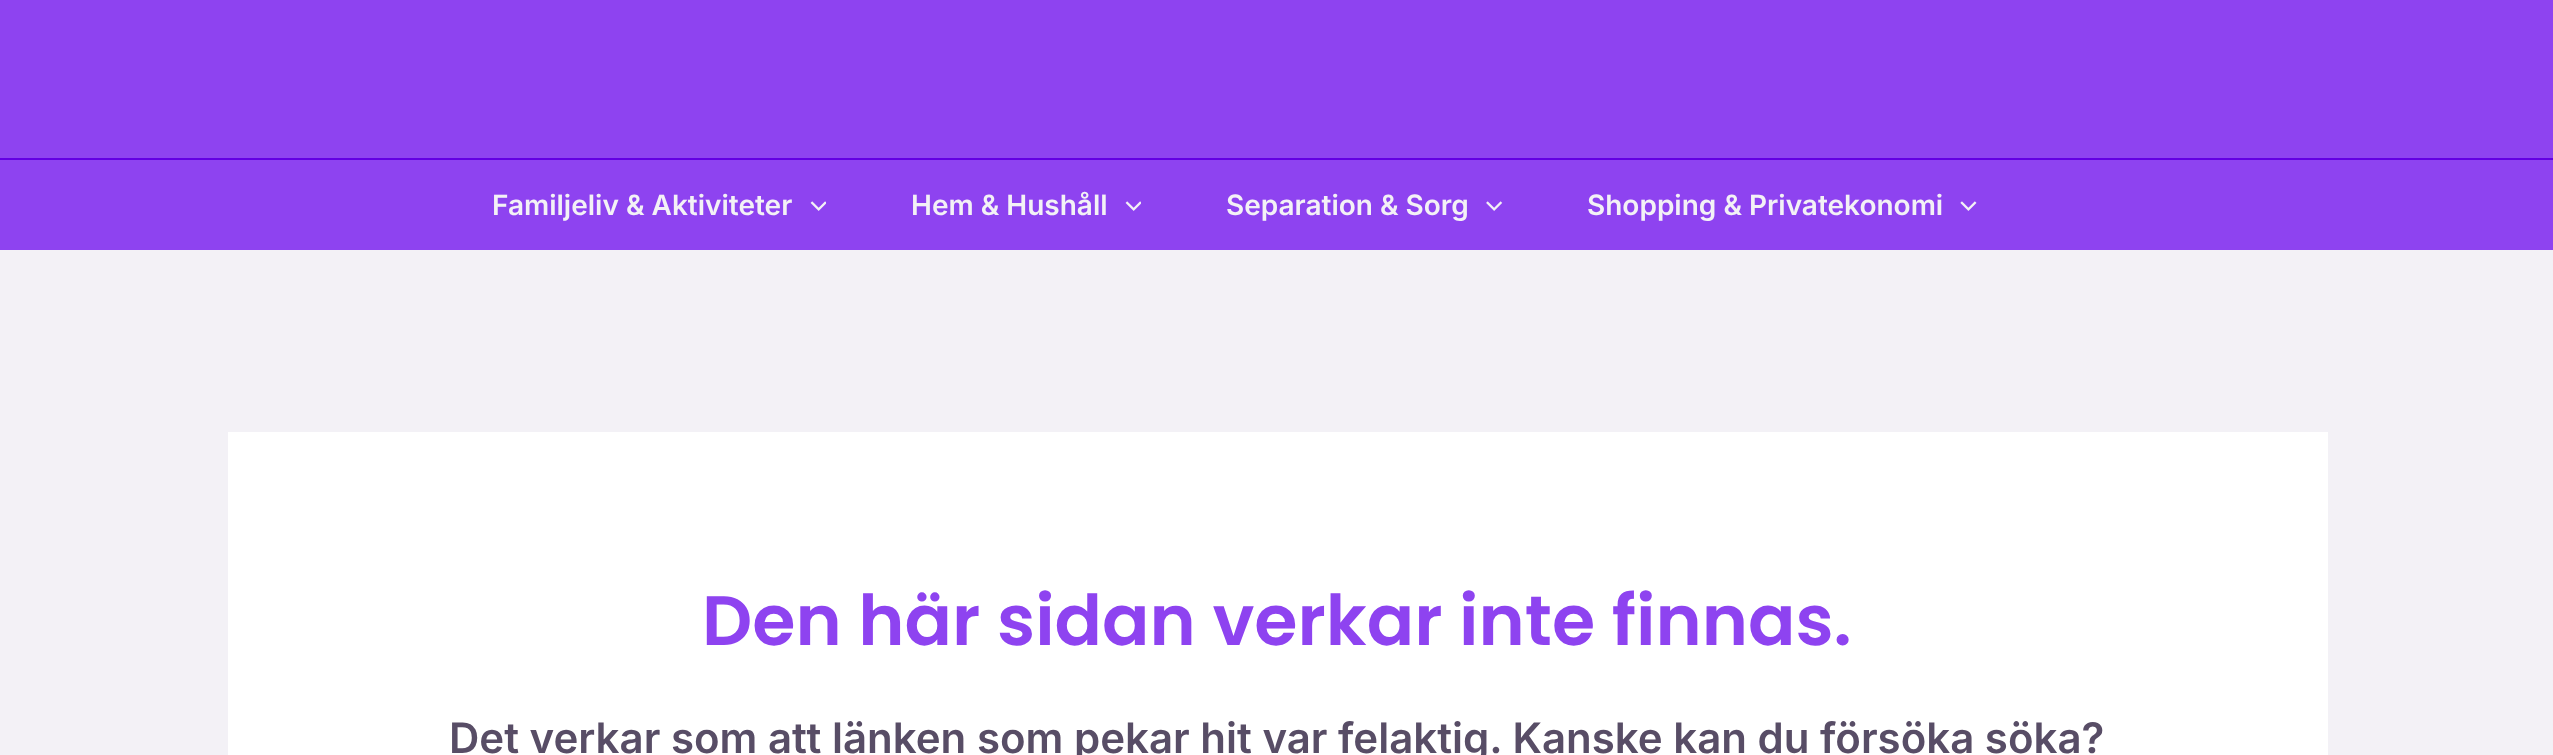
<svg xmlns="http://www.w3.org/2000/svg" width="2553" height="755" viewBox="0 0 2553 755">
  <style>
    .t1 { font: 600 28px Inter; fill: #f3f1f6; }
    .t2 { font: 600 70px Poppins; fill: #8e43f0; }
    .t3 { font: 600 42px Inter; fill: #584d66; }
  </style>
  <rect width="100%" height="100%" fill="#f3f1f6"/>
  <rect x="0" y="0" width="2553" height="158" fill="#8e43f0"/>
  <rect x="0" y="158" width="2553" height="2" fill="#6300e2"/>
  <rect x="0" y="160" width="2553" height="90" fill="#8e43f0"/>
  <text x="492" y="215" class="t1">Familjeliv &amp; Aktiviteter</text>
  <image x="810" y="201" width="16" height="10" href="images/1.png"/>
  <text x="911" y="215" class="t1">Hem &amp; Hushåll</text>
  <image x="1125" y="201" width="16" height="10" href="images/1.png"/>
  <text x="1226" y="215" class="t1">Separation &amp; Sorg</text>
  <image x="1486" y="201" width="17" height="10" href="images/2.png"/>
  <text x="1587" y="215" class="t1">Shopping &amp; Privatekonomi</text>
  <image x="1960" y="201" width="17" height="10" href="images/3.png"/>
  <rect x="228" y="432" width="2100" height="323" fill="#fff"/>
  <text x="702" y="645" class="t2">Den här sidan verkar inte finnas.</text>
  <text x="449" y="753" class="t3">Det verkar som att länken som pekar hit var felaktig. Kanske kan du försöka söka?</text>
</svg>
